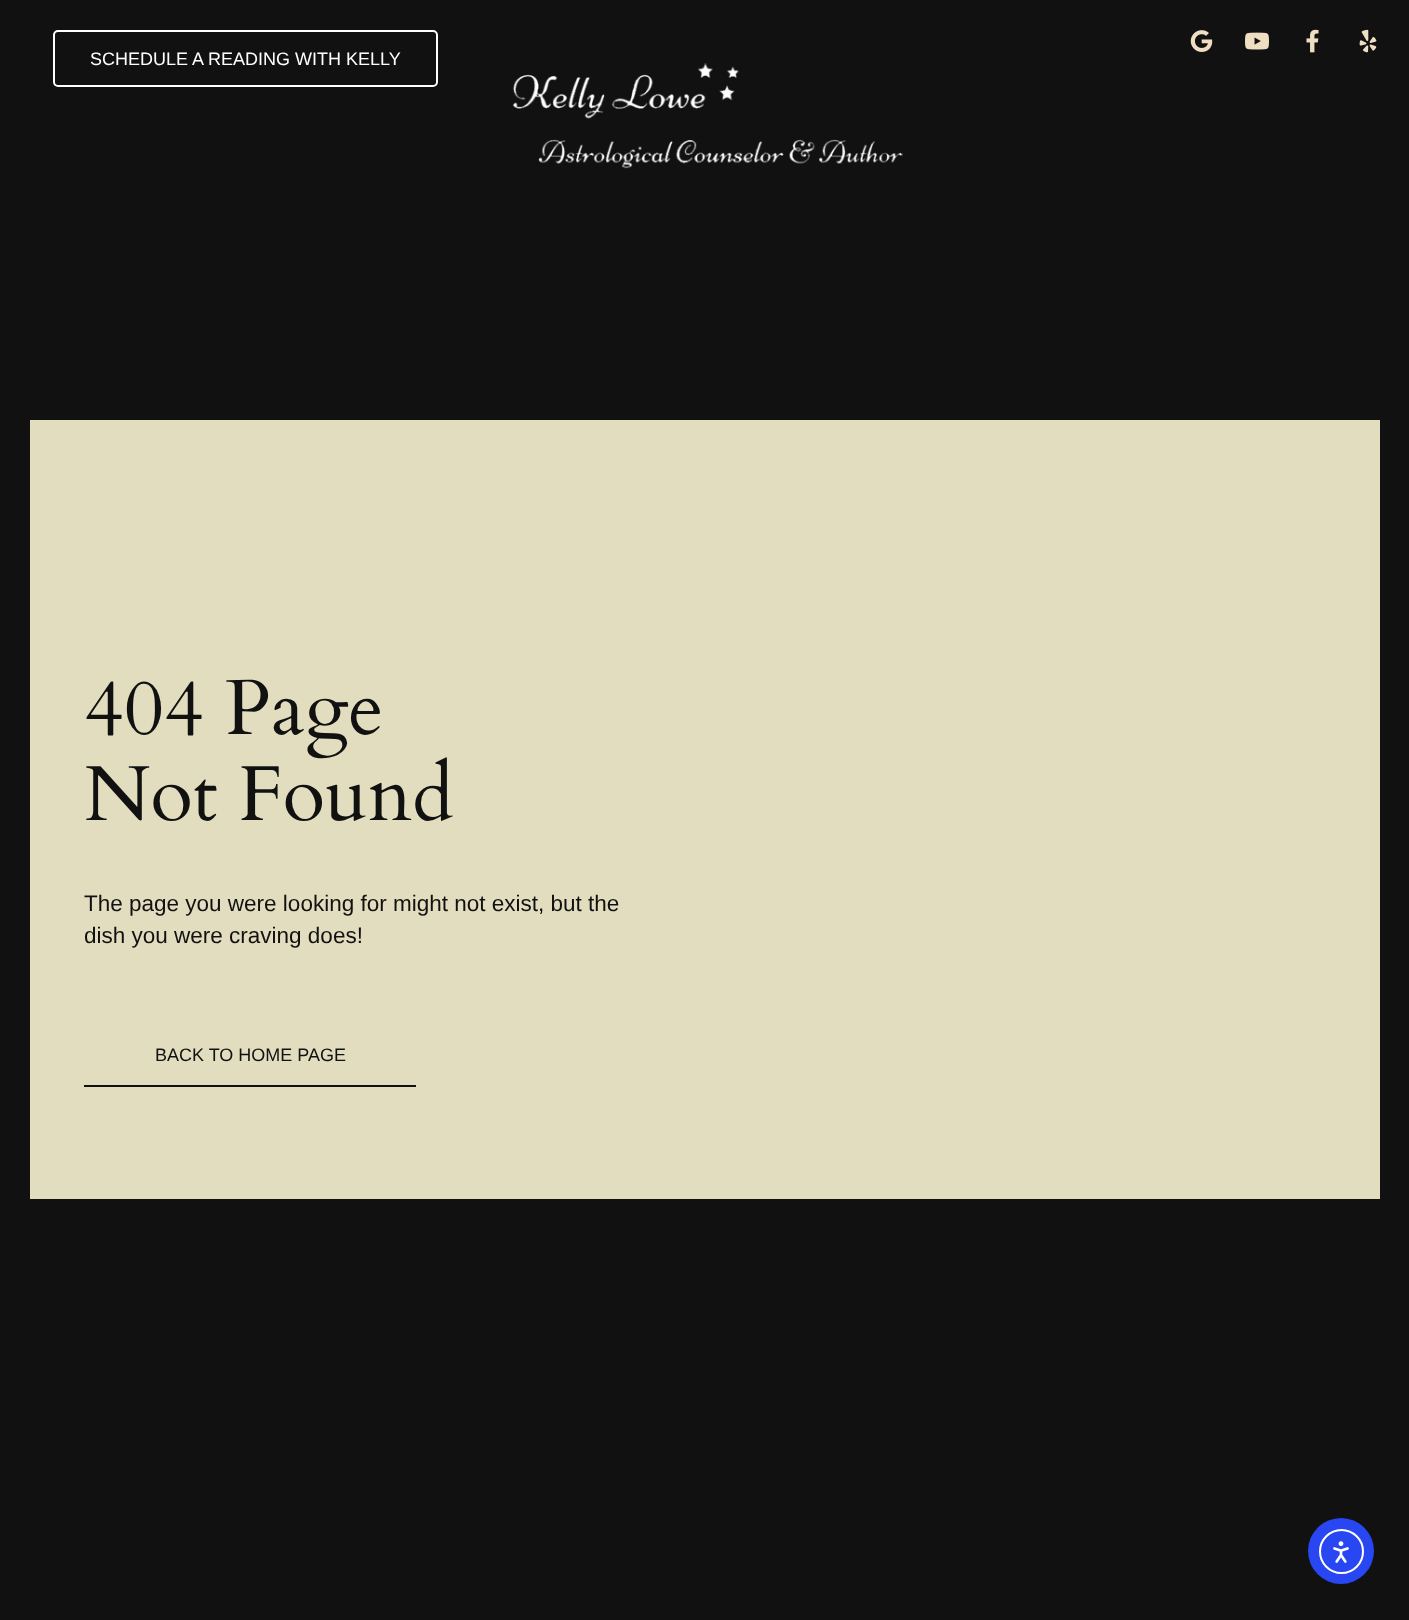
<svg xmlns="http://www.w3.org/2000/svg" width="1409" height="1620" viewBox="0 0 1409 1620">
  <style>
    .t1 { font: 18px Liberation Sans; fill: #fff; }
    .t2 { font: 78px Cardo; fill: #111; }
    .t3 { font: 22.5px Liberation Sans; fill: #111; }
    .t4 { font: 18px Liberation Sans; fill: #111; }
  </style>
  <rect width="100%" height="100%" fill="#111"/>
  <image x="1190" y="30" width="23" height="22" href="images/1.png"/>
  <image x="1245" y="32" width="24" height="18" href="images/2.png"/>
  <image x="1306" y="29" width="13" height="24" href="images/3.png"/>
  <image x="1359" y="29" width="18" height="24" href="images/4.png"/>
  <rect x="54" y="31" width="383" height="55" rx="4" fill="none" stroke="#fff" stroke-width="2"/>
  <text x="90" y="65" class="t1">SCHEDULE A READING WITH KELLY</text>
  <image x="512" y="63" width="391" height="106" href="images/5.png"/>
  <rect x="30" y="420" width="1350" height="779" fill="#e1ddbe"/>
  <text x="84" y="734" class="t2">404 Page</text>
  <text x="84" y="820" class="t2">Not Found</text>
  <text x="84" y="911" class="t3">The page you were looking for might not exist, but the</text>
  <text x="84" y="943" class="t3">dish you were craving does!</text>
  <rect x="84" y="1085" width="332" height="2" fill="#111"/>
  <text x="155" y="1061" class="t4">BACK TO HOME PAGE</text>
  <circle cx="1341" cy="1551" r="33" fill="#2847f3"/>
  <circle cx="1341.5" cy="1551.5" r="21.5" fill="none" stroke="#fff" stroke-width="2"/>
  <image x="1333" y="1541" width="16" height="22" href="images/6.png"/>
</svg>
